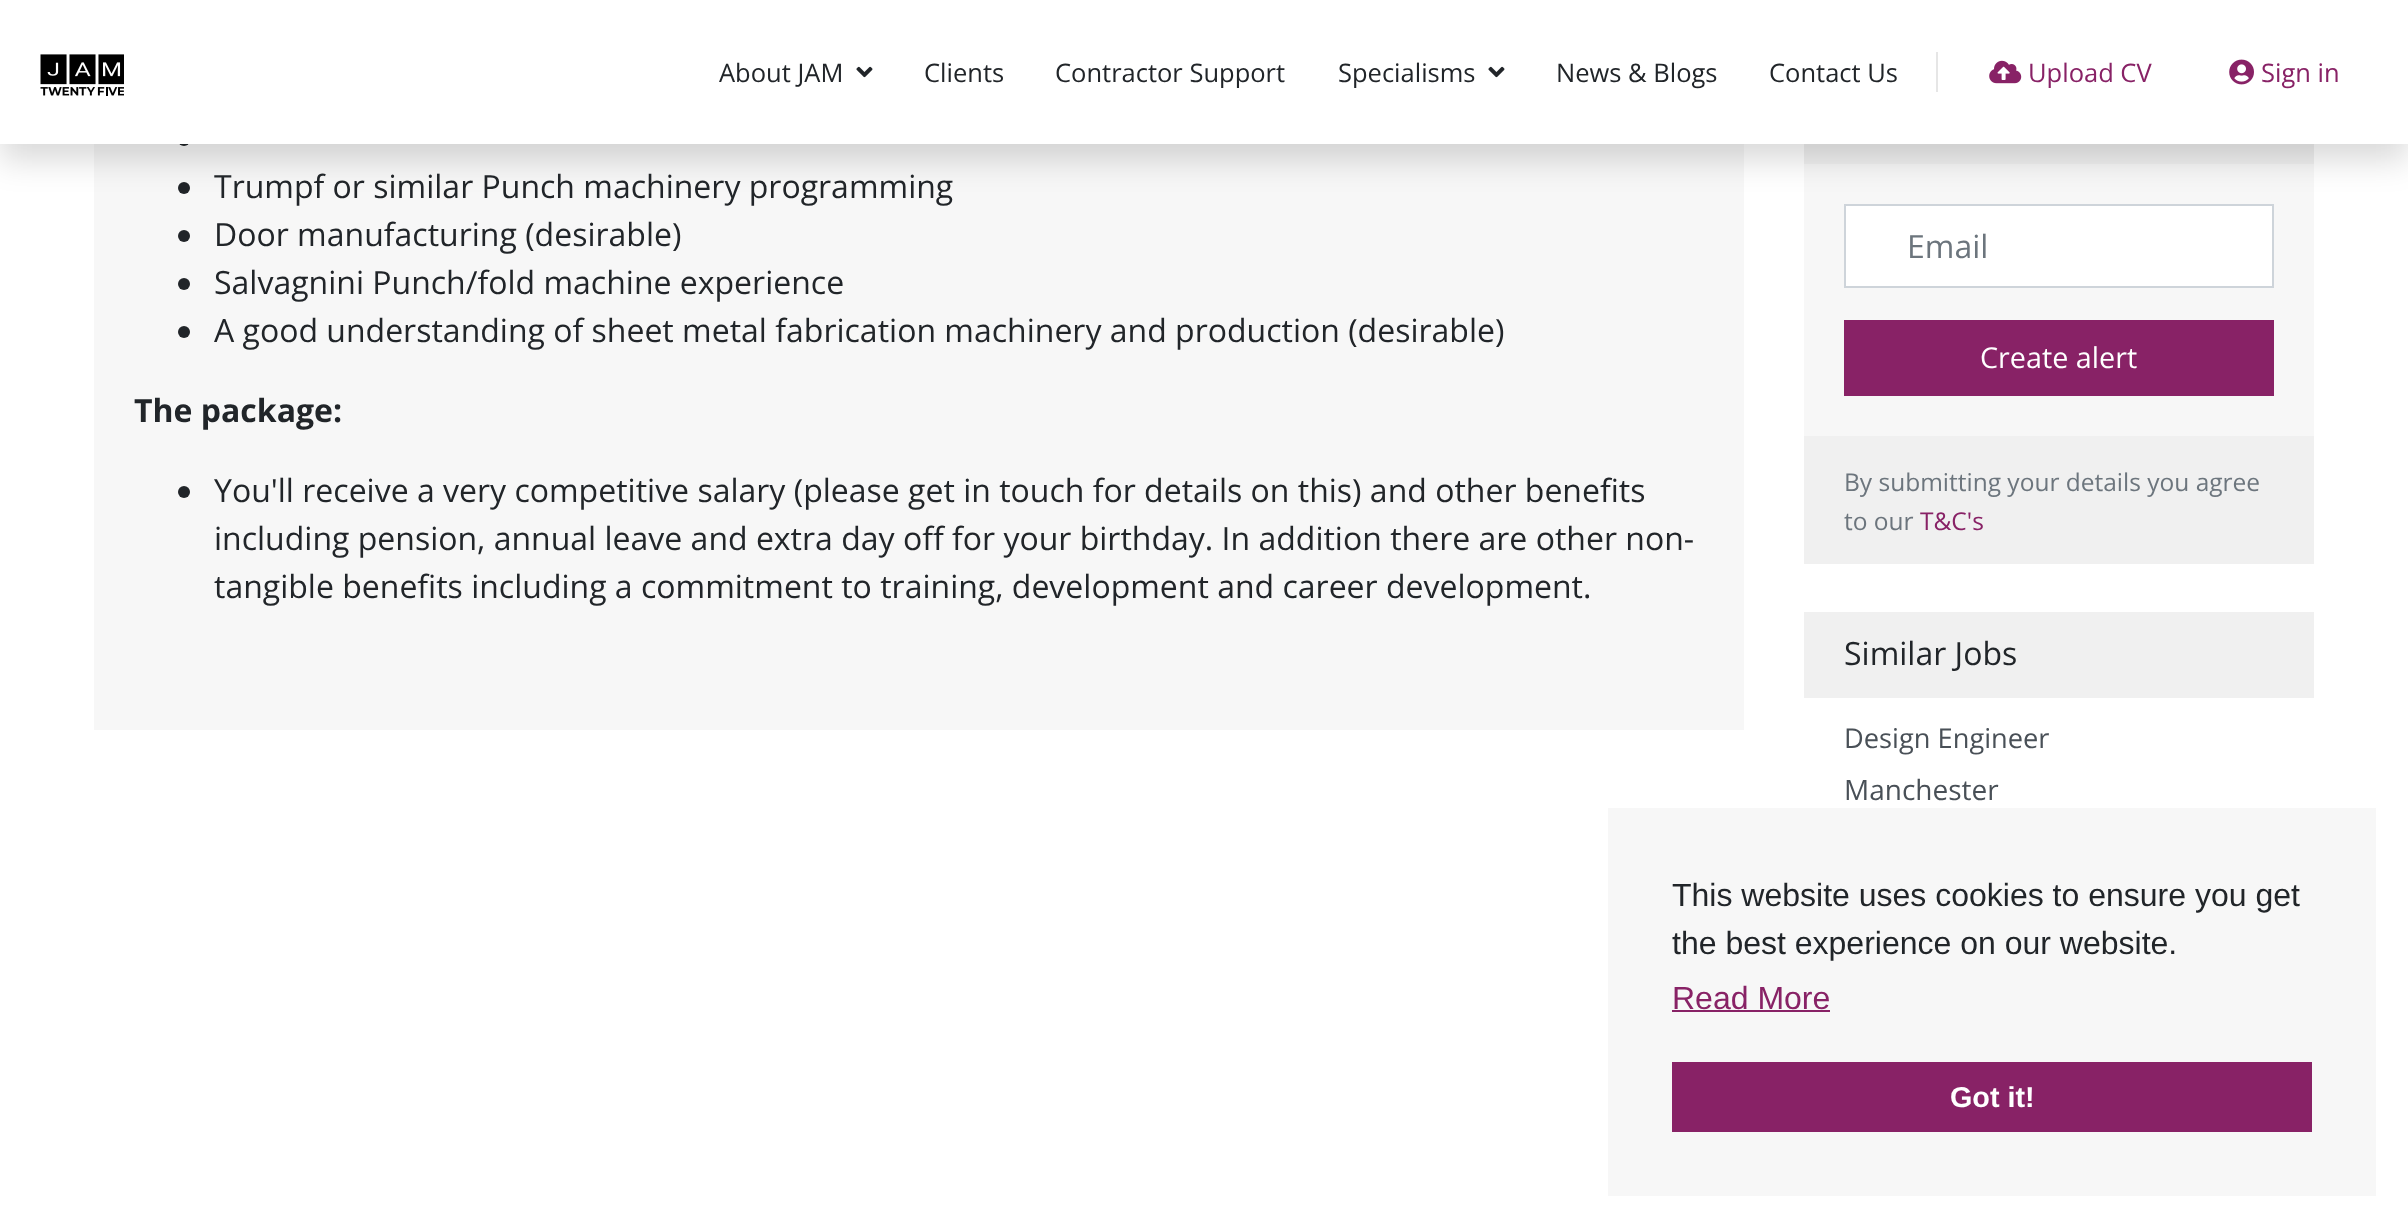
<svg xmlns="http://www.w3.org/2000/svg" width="2408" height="1228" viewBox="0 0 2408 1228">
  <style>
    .t1 { font: 25.5px Open Sans; fill: #212529; }
    .t2 { font: 25.5px Open Sans; fill: #826; }
    .t3 { font: 32px Open Sans; fill: #212529; }
    .t4 { font: bold 32px Open Sans; fill: #212529; }
    .t5 { font: 32px Open Sans; fill: #6c757d; }
    .t6 { font: 28.75px Open Sans; fill: #fff; }
    .t7 { font: 24.5px Open Sans; fill: #6c757d; }
    .t8 { font: 24.5px Open Sans; fill: #826; }
    .t9 { font: 27.25px Open Sans; fill: #495057; }
    .t10 { font: 28px Open Sans; fill: #495057; }
    .t11 { font: 32px Liberation Sans; fill: #212529; }
    .t12 { font: 32px Liberation Sans; fill: #826; }
    .t13 { font: bold 28.75px Liberation Sans; fill: #fff; }
  </style>
  <rect width="100%" height="100%" fill="#fff"/>
  <rect x="94" y="144" width="1650" height="586" fill="#f7f7f7"/>
  <circle cx="184" cy="140" r="6" fill="#212529"/>
  <circle cx="184" cy="188" r="6" fill="#212529"/>
  <rect x="1804" y="164" width="510" height="272" fill="#f7f7f7"/>
  <rect x="1804" y="144" width="510" height="20" fill="#f0f0f0"/>
  <rect x="1845" y="205" width="428" height="82" fill="#fff" stroke="#ced4da" stroke-width="2"/>
  <rect x="0" y="16" width="2408" height="144" fill="#00000026" filter="blur(16px)"/>
  <rect x="0" y="0" width="2408" height="144" fill="#fff"/>
  <image x="40" y="54" width="84" height="42" href="images/1.png"/>
  <rect x="1936" y="52" width="2" height="40" fill="#e6e6e6"/>
  <text x="719" y="82" class="t1">About JAM</text>
  <image x="856" y="66" width="17" height="12" href="images/2.png"/>
  <text x="924" y="82" class="t1">Clients</text>
  <text x="1055" y="82" class="t1">Contractor Support</text>
  <text x="1338" y="82" class="t1">Specialisms</text>
  <image x="1488" y="66" width="17" height="12" href="images/2.png"/>
  <text x="1556" y="82" class="t1">News &amp; Blogs</text>
  <text x="1769" y="82" class="t1">Contact Us</text>
  <image x="1989" y="60" width="33" height="24" href="images/3.png"/>
  <text x="2028" y="82" class="t2">Upload CV</text>
  <image x="2229" y="59" width="25" height="26" href="images/4.png"/>
  <text x="2261" y="82" class="t2">Sign in</text>
  <text x="214" y="198" class="t3">Trumpf or similar Punch machinery programming</text>
  <circle cx="184" cy="236" r="6" fill="#212529"/>
  <text x="214" y="246" class="t3">Door manufacturing (desirable)</text>
  <circle cx="184" cy="284" r="6" fill="#212529"/>
  <text x="214" y="294" class="t3">Salvagnini Punch/fold machine experience</text>
  <circle cx="184" cy="332" r="6" fill="#212529"/>
  <text x="214" y="342" class="t3">A good understanding of sheet metal fabrication machinery and production (desirable)</text>
  <text x="134" y="422" class="t4">The package:</text>
  <circle cx="184" cy="492" r="6" fill="#212529"/>
  <text x="214" y="502" class="t3">You'll receive a very competitive salary (please get in touch for details on this) and other benefits</text>
  <text x="214" y="550" class="t3">including pension, annual leave and extra day off for your birthday. In addition there are other non-</text>
  <text x="214" y="598" class="t3">tangible benefits including a commitment to training, development and career development.</text>
  <text x="1907" y="258" class="t5">Email</text>
  <rect x="1844" y="320" width="430" height="76" fill="#826"/>
  <text x="1980" y="368" class="t6">Create alert</text>
  <rect x="1804" y="436" width="510" height="128" fill="#f0f0f0"/>
  <text x="1844" y="491" class="t7">By submitting your details you agree</text>
  <text x="1844" y="530" class="t7">to our</text>
  <text x="1920" y="530" class="t8">T&amp;C's</text>
  <rect x="1804" y="612" width="510" height="86" fill="#f0f0f0"/>
  <text x="1844" y="665" class="t3">Similar Jobs</text>
  <text x="1844" y="748" class="t9">Design Engineer</text>
  <text x="1844" y="800" class="t10">Manchester</text>
  <rect x="1608" y="808" width="768" height="388" fill="#f7f7f7"/>
  <text x="1672" y="906" class="t11">This website uses cookies to ensure you get</text>
  <text x="1672" y="954" class="t11">the best experience on our website.</text>
  <text x="1672" y="1009" class="t12">Read More</text>
  <rect x="1672" y="1010" width="158" height="2" fill="#826"/>
  <rect x="1672" y="1062" width="640" height="70" fill="#826"/>
  <text x="1950" y="1107" class="t13">Got it!</text>
</svg>
